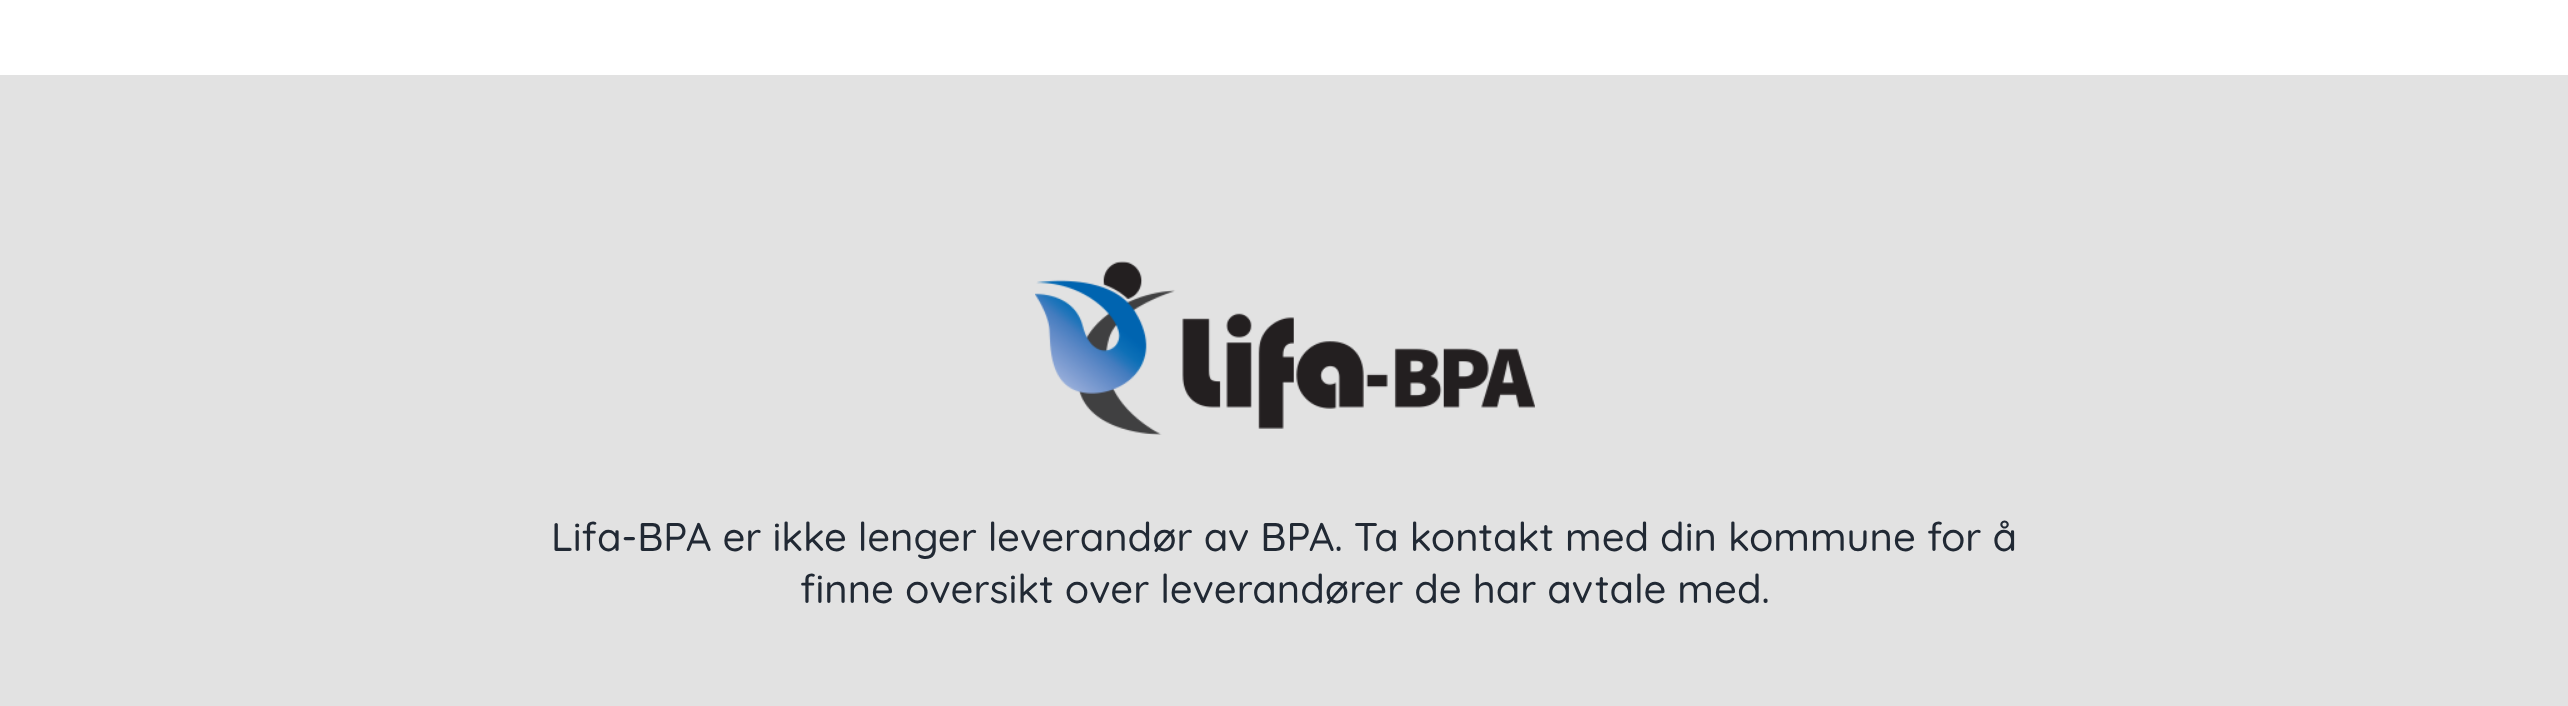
<svg xmlns="http://www.w3.org/2000/svg" width="2568" height="706" viewBox="0 0 2568 706">
  <style>
    .t1 { font: 500 40px Quicksand; fill: #212934; }
  </style>
  <rect width="100%" height="100%" fill="#fff"/>
  <rect x="0" y="75" width="2568" height="631" fill="#e2e2e2"/>
  <image x="1035" y="261" width="500" height="174" href="images/1.png"/>
  <text x="551" y="551" class="t1">Lifa-BPA er ikke lenger leverandør av BPA. Ta kontakt med din kommune for å</text>
  <text x="800" y="603" class="t1">finne oversikt over leverandører de har avtale med.</text>
</svg>
